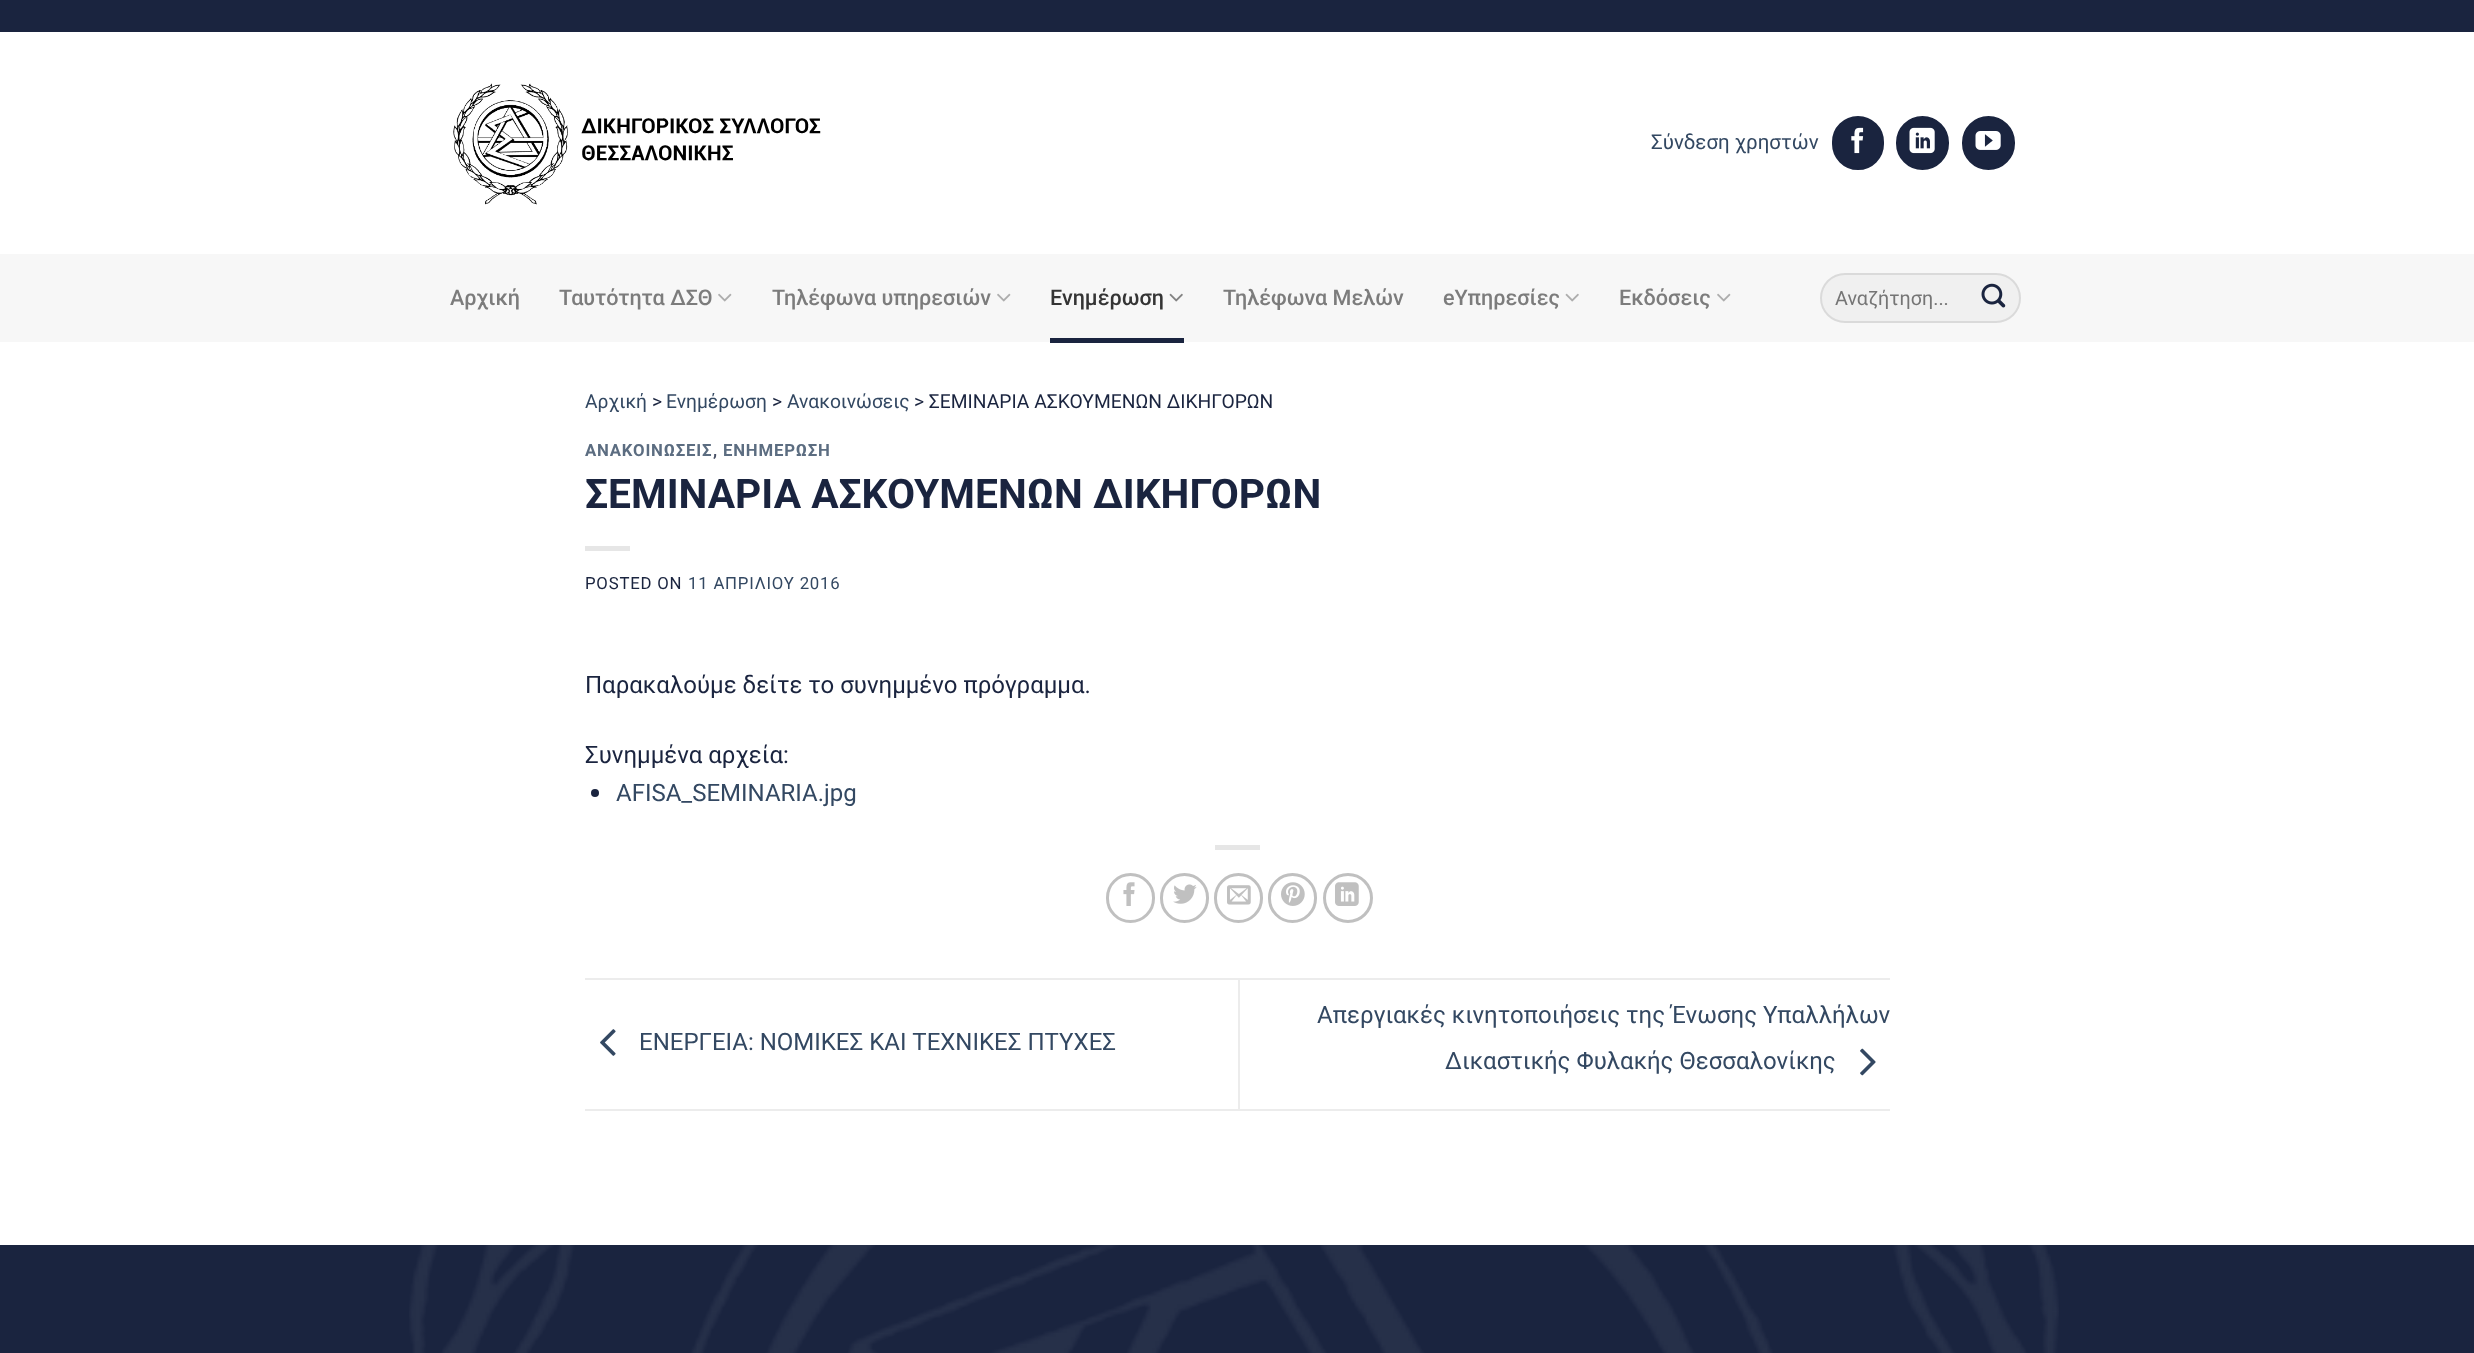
<svg xmlns="http://www.w3.org/2000/svg" width="2474" height="1353" viewBox="0 0 2474 1353">
  <style>
    .t1 { font: 20.5px Roboto; fill: #334862; }
    .t2 { font: 500 21.6px Roboto; fill: #7c7c7c; }
    .t3 { font: 500 21.6px Roboto; fill: #343434; }
    .t4 { font: 19.75px Roboto; fill: #757575; }
    .t5 { font: 19.25px Roboto; fill: #334862; }
    .t6 { font: 19.25px Roboto; fill: #1a243f; }
    .t7 { font: bold 16.75px Roboto; letter-spacing: 0.8px; fill: #5c6d81; }
    .t8 { font: bold 16.75px Roboto; letter-spacing: 0.8px; fill: #485065; }
    .t9 { font: bold 40.75px Roboto; fill: #1a243f; }
    .t10 { font: 16.75px Roboto; letter-spacing: 0.8px; fill: #1a243f; }
    .t11 { font: 16.75px Roboto; letter-spacing: 0.8px; fill: #334862; }
    .t12 { font: 24px Roboto; fill: #1a243f; }
    .t13 { font: 24px Roboto; fill: #334862; }
  </style>
  <rect width="100%" height="100%" fill="#fff"/>
  <rect x="0" y="0" width="2474" height="32" fill="#1a243f"/>
  <image x="453" y="83" width="368" height="122" href="images/1.png"/>
  <text x="1651" y="149" class="t1">Σύνδεση χρηστών</text>
  <rect x="1833" y="117" width="50" height="52" rx="25" fill="#1a243f" stroke="#1a243f" stroke-width="2"/>
  <image x="1851" y="127" width="13" height="27" href="images/2.png"/>
  <rect x="1897" y="117" width="51" height="52" rx="25.5" fill="#1a243f" stroke="#1a243f" stroke-width="2"/>
  <image x="1909" y="127" width="26" height="27" href="images/3.png"/>
  <rect x="1963" y="117" width="51" height="52" rx="25.5" fill="#1a243f" stroke="#1a243f" stroke-width="2"/>
  <image x="1975" y="131" width="26" height="19" href="images/4.png"/>
  <rect x="0" y="254" width="2474" height="88" fill="#f7f7f7"/>
  <text x="450" y="305" class="t2">Αρχική</text>
  <text x="559" y="305" class="t2">Ταυτότητα ΔΣΘ</text>
  <image x="718" y="293" width="14" height="9" href="images/5.png"/>
  <text x="772" y="305" class="t2">Τηλέφωνα υπηρεσιών</text>
  <image x="997" y="293" width="14" height="9" href="images/5.png"/>
  <text x="1050" y="305" class="t3">Ενημέρωση</text>
  <image x="1169" y="293" width="14" height="9" href="images/6.png"/>
  <rect x="1050" y="338" width="134" height="5" fill="#1a243f"/>
  <text x="1223" y="305" class="t2">Τηλέφωνα Μελών</text>
  <text x="1443" y="305" class="t2">eΥπηρεσίες</text>
  <image x="1565" y="293" width="14" height="9" href="images/7.png"/>
  <text x="1619" y="305" class="t2">Εκδόσεις</text>
  <image x="1717" y="293" width="14" height="9" href="images/5.png"/>
  <rect x="1820" y="273" width="201" height="50" rx="25" fill="#f0f0f0"/>
  <rect x="1821" y="274" width="199" height="48" rx="24" fill="none" stroke="#00000017" stroke-width="2"/>
  <text x="1835" y="305" class="t4">Αναζήτηση...</text>
  <image x="1981" y="283" width="25" height="25" href="images/8.png"/>
  <text x="585" y="408" class="t5">Αρχική</text>
  <text x="652" y="408" class="t6">&gt;</text>
  <text x="666" y="408" class="t5">Ενημέρωση</text>
  <text x="772" y="408" class="t6">&gt;</text>
  <text x="787" y="408" class="t5">Ανακοινώσεις</text>
  <text x="914" y="408" class="t6">&gt; ΣΕΜΙΝΑΡΙΑ ΑΣΚΟΥΜΕΝΩΝ ΔΙΚΗΓΟΡΩΝ</text>
  <text x="585" y="456" class="t7">ΑΝΑΚΟΙΝΩΣΕΙΣ</text>
  <text x="723" y="456" class="t7">ΕΝΗΜΕΡΩΣΗ</text>
  <text x="713" y="456" class="t8">,</text>
  <text x="585" y="508" class="t9">ΣΕΜΙΝΑΡΙΑ ΑΣΚΟΥΜΕΝΩΝ ΔΙΚΗΓΟΡΩΝ</text>
  <rect x="585" y="546" width="45" height="5" fill="#e6e6e6"/>
  <text x="585" y="589" class="t10">POSTED ON</text>
  <text x="688" y="589" class="t11">11 ΑΠΡΙΛΙΟΥ 2016</text>
  <text x="585" y="693" class="t12">Παρακαλούμε δείτε το συνημμένο πρόγραμμα.</text>
  <text x="585" y="763" class="t12">Συνημμένα αρχεία:</text>
  <circle cx="595" cy="793" r="4" fill="#1a243f"/>
  <text x="616" y="801" class="t13">AFISA_SEMINARIA.jpg</text>
  <rect x="1215" y="845" width="45" height="5" fill="#e6e6e6"/>
  <rect x="1107.5" y="874.5" width="46" height="47" rx="23" fill="none" stroke="#c0c0c0" stroke-width="3"/>
  <image x="1123" y="882" width="12" height="24" href="images/9.png"/>
  <rect x="1161.5" y="874.5" width="46" height="47" rx="23" fill="none" stroke="#c0c0c0" stroke-width="3"/>
  <image x="1173" y="884" width="24" height="20" href="images/10.png"/>
  <rect x="1215.5" y="874.5" width="46" height="47" rx="23" fill="none" stroke="#c0c0c0" stroke-width="3"/>
  <image x="1227" y="885" width="24" height="20" href="images/11.png"/>
  <rect x="1269.5" y="874.5" width="46" height="47" rx="23" fill="none" stroke="#c0c0c0" stroke-width="3"/>
  <image x="1281" y="882" width="24" height="24" href="images/12.png"/>
  <circle cx="1348" cy="898" r="23.5" fill="none" stroke="#c0c0c0" stroke-width="3"/>
  <image x="1335" y="882" width="24" height="24" href="images/13.png"/>
  <rect x="585" y="978" width="1305" height="2" fill="#ececec"/>
  <rect x="585" y="1109" width="1305" height="2" fill="#ececec"/>
  <image x="600" y="1029" width="16" height="27" href="images/14.png"/>
  <text x="639" y="1050" class="t13">ΕΝΕΡΓΕΙΑ: ΝΟΜΙΚΕΣ ΚΑΙ ΤΕΧΝΙΚΕΣ ΠΤΥΧΕΣ</text>
  <rect x="1238" y="980" width="2" height="129" fill="#ececec"/>
  <text x="1317" y="1023" class="t13">Απεργιακές κινητοποιήσεις της Ένωσης Υπαλλήλων</text>
  <text x="1445" y="1069" class="t13">Δικαστικής Φυλακής Θεσσαλονίκης</text>
  <image x="1860" y="1048" width="16" height="28" href="images/15.png"/>
  <rect x="0" y="1245" width="2474" height="108" fill="#1a243f"/>
  <image x="409" y="1245" width="1650" height="108" href="images/16.png"/>
</svg>
